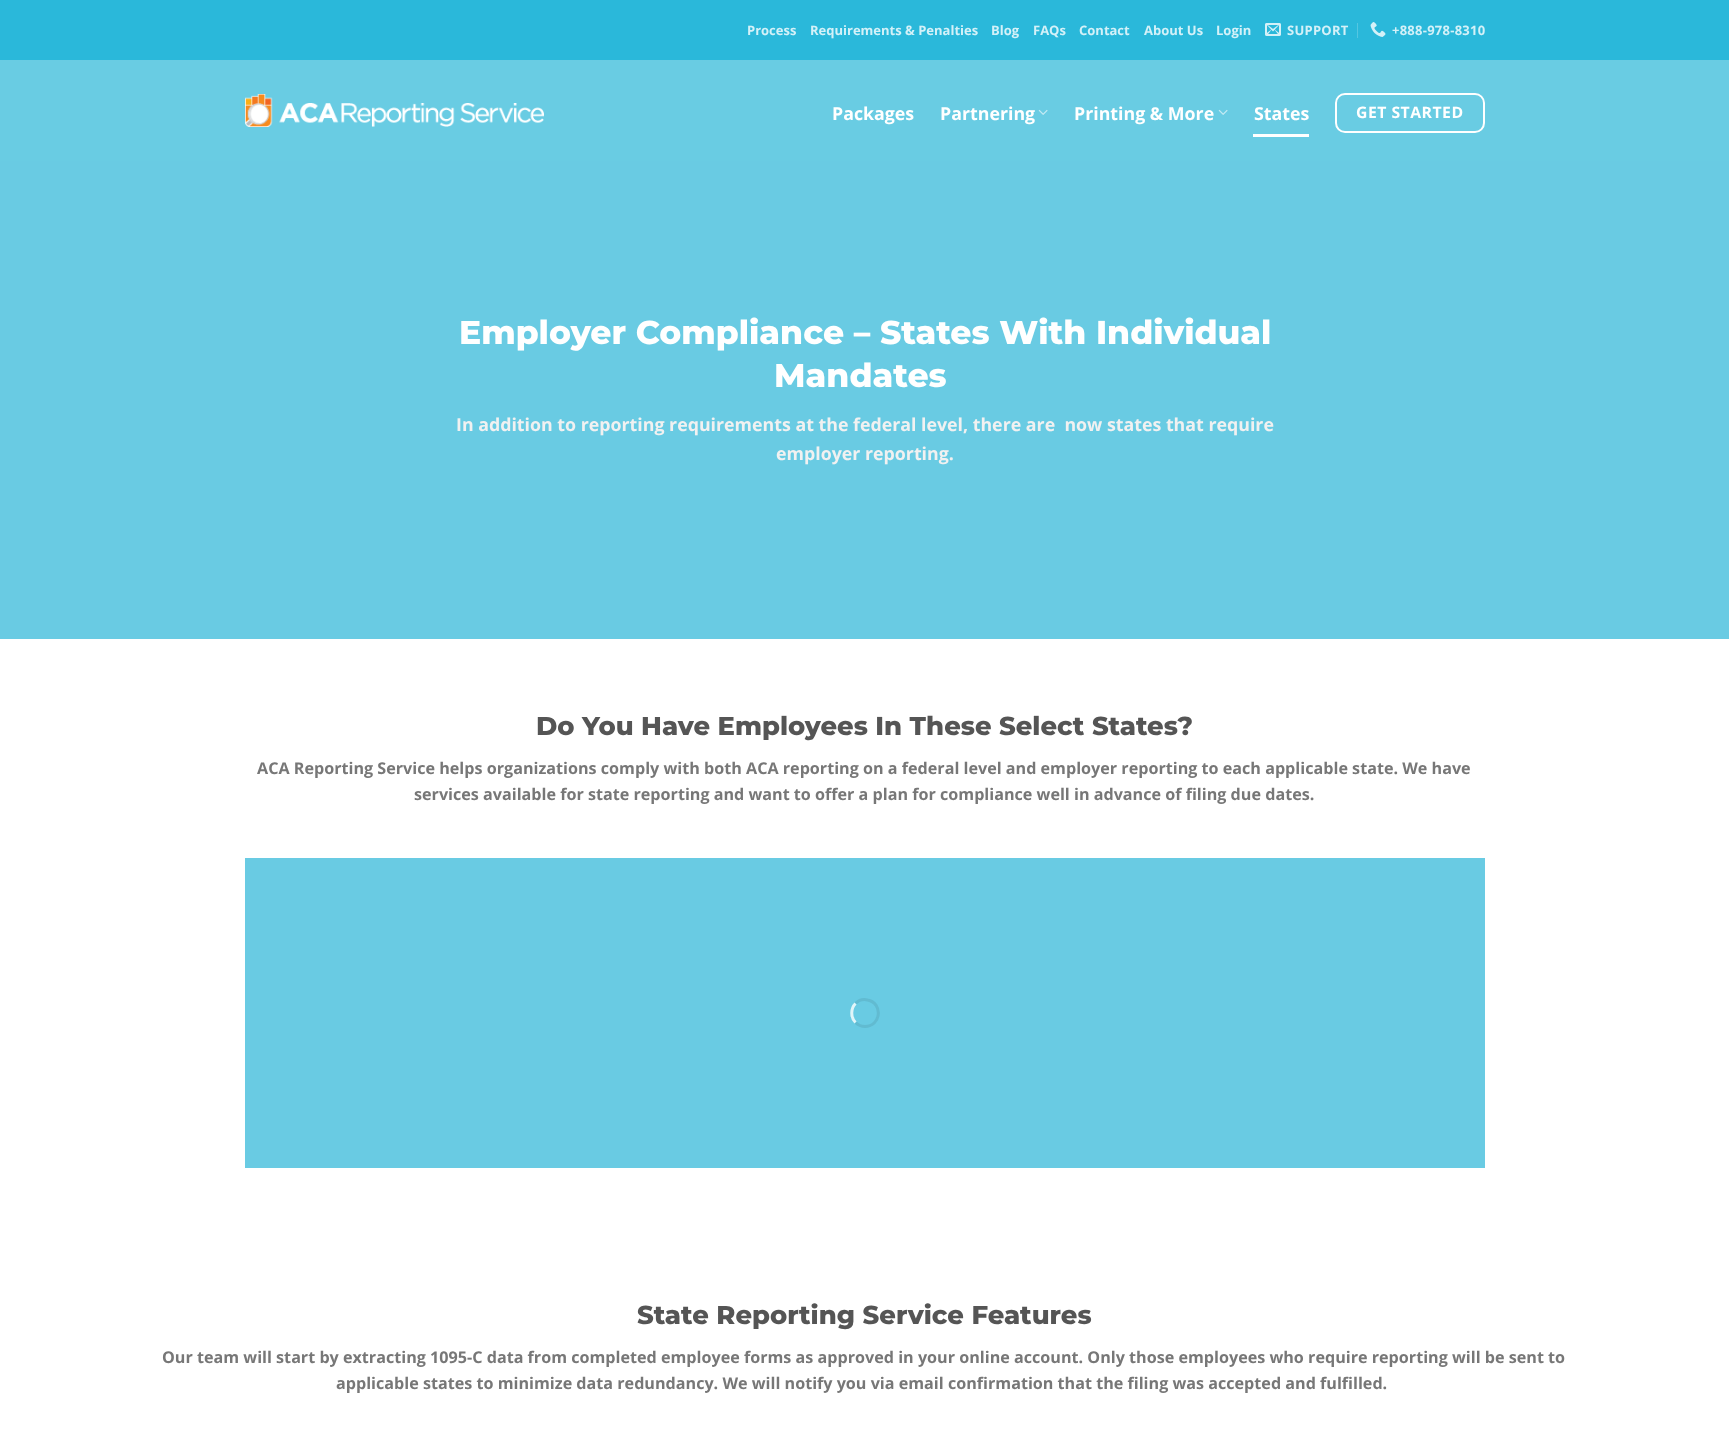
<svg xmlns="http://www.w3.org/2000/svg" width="1729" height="1445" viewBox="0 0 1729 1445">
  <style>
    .t1 { font: bold 13px Open Sans; fill: #d4f1f8; }
    .t2 { font: bold 13px Open Sans; letter-spacing: 0.25px; fill: #d4f1f8; }
    .t3 { font: bold 17.8px Open Sans; fill: #fff; }
    .t4 { font: bold 15.75px Open Sans; letter-spacing: 0.5px; fill: #fff; }
    .t5 { font: 800 33px Montserrat; fill: #fff; }
    .t6 { font: bold 17.8px Open Sans; fill: #f1f1f1; }
    .t7 { font: 800 25.85px Montserrat; fill: #555; }
    .t8 { font: bold 16.15px Open Sans; fill: #777; }
  </style>
  <rect width="100%" height="100%" fill="#fff"/>
  <rect x="0" y="0" width="1729" height="60" fill="#2ab8da"/>
  <text x="747" y="35" class="t1">Process</text>
  <text x="810" y="35" class="t1">Requirements &amp; Penalties</text>
  <text x="991" y="35" class="t1">Blog</text>
  <text x="1033" y="35" class="t1">FAQs</text>
  <text x="1079" y="35" class="t1">Contact</text>
  <text x="1144" y="35" class="t1">About Us</text>
  <text x="1216" y="35" class="t1">Login</text>
  <image x="1265" y="23" width="16" height="13" href="images/1.png"/>
  <text x="1287" y="35" class="t2">SUPPORT</text>
  <rect x="1357" y="23" width="1" height="15" fill="#55c6e1"/>
  <image x="1370" y="22" width="16" height="15" href="images/2.png"/>
  <text x="1392" y="35" class="t2">+888-978-8310</text>
  <rect x="0" y="60" width="1729" height="101" fill="#69cce3"/>
  <image x="245" y="94" width="299" height="33" href="images/3.png"/>
  <text x="832" y="120" class="t3">Packages</text>
  <text x="940" y="120" class="t3">Partnering</text>
  <image x="1038" y="109" width="10" height="6" href="images/4.png"/>
  <text x="1074" y="120" class="t3">Printing &amp; More</text>
  <image x="1218" y="109" width="10" height="6" href="images/4.png"/>
  <text x="1254" y="120" class="t3">States</text>
  <rect x="1253" y="134" width="56" height="3" fill="#fff"/>
  <rect x="1336" y="94" width="148" height="38" rx="9" fill="none" stroke="#fff" stroke-width="2"/>
  <text x="1356" y="118" class="t4">GET STARTED</text>
  <rect x="0" y="161" width="1729" height="478" fill="#69cbe3"/>
  <text x="459" y="344" class="t5">Employer Compliance – States With Individual</text>
  <text x="774" y="387" class="t5">Mandates</text>
  <text x="456" y="431" class="t6" xml:space="preserve">In addition to reporting requirements at the federal level, there are  now states that require</text>
  <text x="776" y="460" class="t6">employer reporting.</text>
  <text x="536" y="735" class="t7">Do You Have Employees In These Select States?</text>
  <text x="257" y="774" class="t8">ACA Reporting Service helps organizations comply with both ACA reporting on a federal level and employer reporting to each applicable state. We have</text>
  <text x="414" y="800" class="t8">services available for state reporting and want to offer a plan for compliance well in advance of filing due dates.</text>
  <rect x="245" y="858" width="1240" height="310" fill="#69cbe3"/>
  <path d="M855.5 1003.5C858.5 1000.5 863.5 999 867.5 1000C883.5 1003 881 1026.5 865 1026.5C861.5 1026.5 858 1025 855.5 1022.5" fill="none" stroke="#61bbd1" stroke-width="3"/>
  <path d="M855.5 1022.5C850.5 1017.5 850.5 1008.5 855.5 1003.5" fill="none" stroke="#e1f5f9" stroke-width="3"/>
  <text x="637" y="1324" class="t7">State Reporting Service Features</text>
  <text x="162" y="1363" class="t8">Our team will start by extracting 1095-C data from completed employee forms as approved in your online account. Only those employees who require reporting will be sent to</text>
  <text x="336" y="1389" class="t8">applicable states to minimize data redundancy. We will notify you via email confirmation that the filing was accepted and fulfilled.</text>
</svg>
